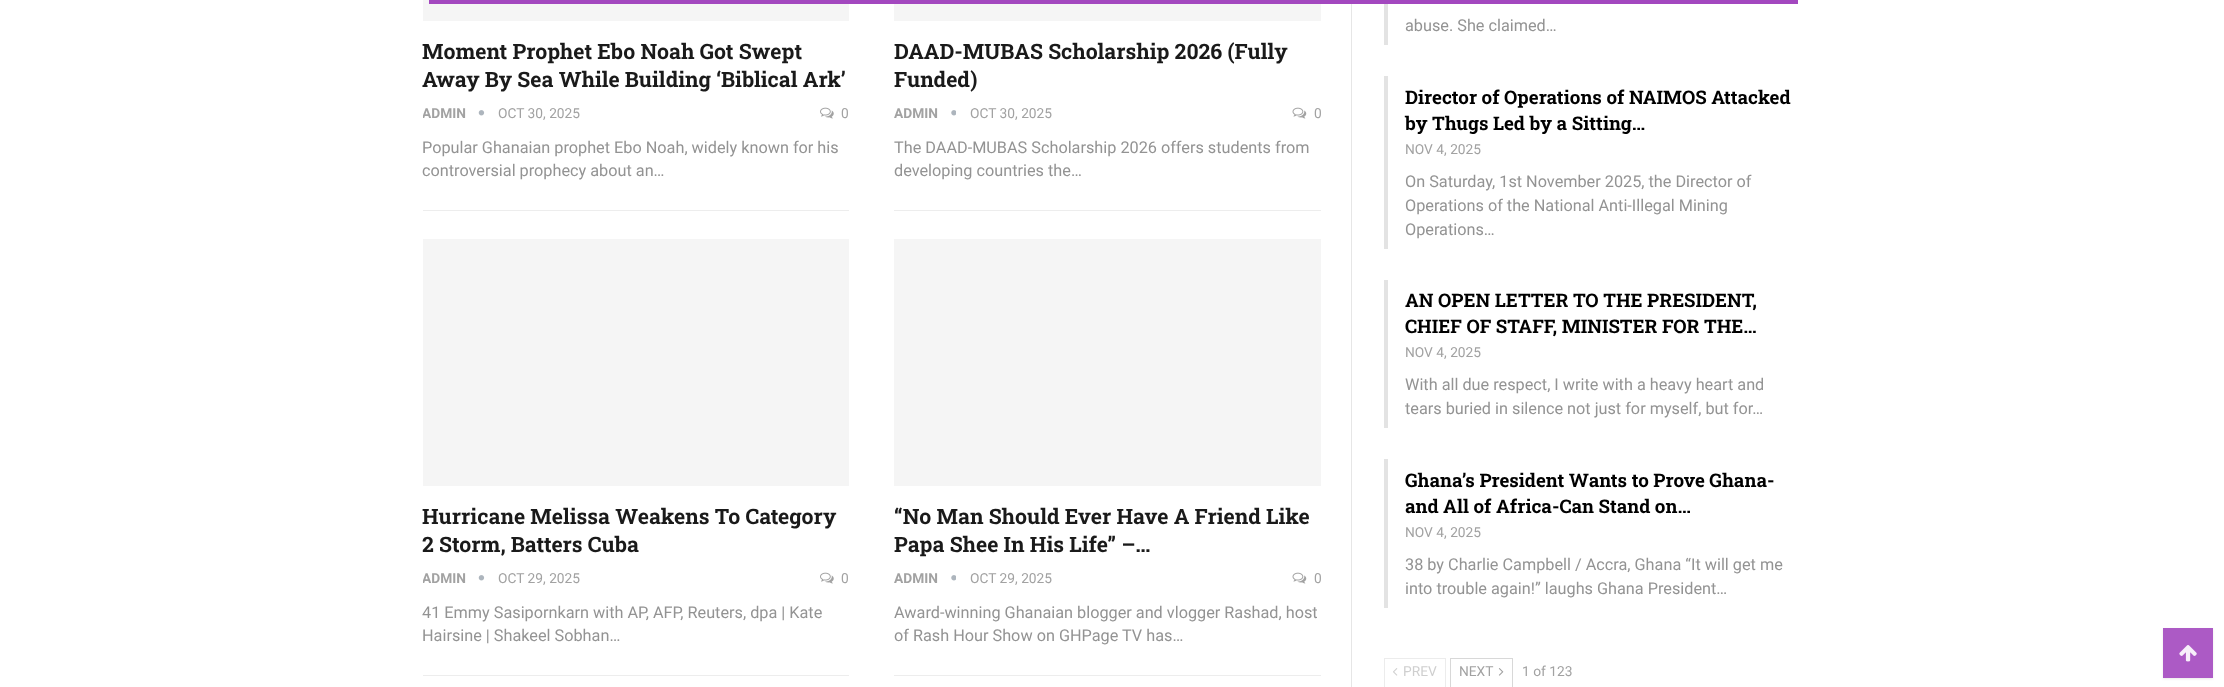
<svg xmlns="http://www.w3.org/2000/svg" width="2224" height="687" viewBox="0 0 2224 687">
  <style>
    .t1 { font: bold 21.25px Roboto Slab; fill: #1a1a1a; }
    .t2 { font: bold 13.75px Roboto; fill: #a2a2a2; }
    .t3 { font: 13.75px Roboto; fill: #a2a2a2; }
    .t4 { font: 16.25px Roboto; fill: #939393; }
    .t5 { font: bold 18.75px Roboto Slab; fill: #000; }
    .t6 { font: 13.75px Roboto; fill: #cfcfcf; }
  </style>
  <defs>
    <clipPath id="clip1"><rect x="423" y="103" width="62" height="23"/></clipPath>
    <clipPath id="clip2"><rect x="423" y="568" width="62" height="23"/></clipPath>
  </defs>
  <rect width="100%" height="100%" fill="#fff"/>
  <rect x="423" y="0" width="426" height="21" fill="#f5f5f5"/>
  <rect x="1351" y="0" width="1" height="687" fill="#e6e6e6"/>
  <rect x="1384" y="0" width="4" height="45" fill="#e3e3e3"/>
  <rect x="429" y="0" width="1369" height="4" fill="#a348bf"/>
  <text x="422" y="59" class="t1">Moment Prophet Ebo Noah Got Swept</text>
  <text x="422" y="87" class="t1">Away By Sea While Building ‘Biblical Ark’</text>
  <g clip-path="url(#clip1)">
    <text x="422" y="118" class="t2">ADMIN</text>
  </g>
  <image x="478" y="110" width="7" height="6" href="images/1.png"/>
  <text x="498" y="118" class="t3">OCT 30, 2025</text>
  <image x="820" y="107" width="14" height="12" href="images/2.png"/>
  <text x="841" y="118" class="t3">0</text>
  <rect x="423" y="210" width="426" height="1" fill="#ededed"/>
  <text x="422" y="153" class="t4">Popular Ghanaian prophet Ebo Noah, widely known for his</text>
  <text x="422" y="176" class="t4">controversial prophecy about an…</text>
  <rect x="894" y="4" width="427" height="17" fill="#f5f5f5"/>
  <text x="894" y="59" class="t1">DAAD-MUBAS Scholarship 2026 (Fully</text>
  <text x="894" y="87" class="t1">Funded)</text>
  <text x="894" y="118" class="t2">ADMIN</text>
  <image x="951" y="110" width="5" height="6" href="images/3.png"/>
  <text x="970" y="118" class="t3">OCT 30, 2025</text>
  <image x="1292" y="107" width="15" height="12" href="images/4.png"/>
  <text x="1314" y="118" class="t3">0</text>
  <rect x="894" y="210" width="427" height="1" fill="#ededed"/>
  <text x="894" y="153" class="t4">The DAAD-MUBAS Scholarship 2026 offers students from</text>
  <text x="894" y="176" class="t4">developing countries the…</text>
  <rect x="423" y="239" width="426" height="247" fill="#f5f5f5"/>
  <text x="422" y="524" class="t1">Hurricane Melissa Weakens To Category</text>
  <text x="422" y="552" class="t1">2 Storm, Batters Cuba</text>
  <g clip-path="url(#clip2)">
    <text x="422" y="583" class="t2">ADMIN</text>
  </g>
  <image x="478" y="575" width="7" height="6" href="images/1.png"/>
  <text x="498" y="583" class="t3">OCT 29, 2025</text>
  <image x="820" y="572" width="14" height="12" href="images/2.png"/>
  <text x="841" y="583" class="t3">0</text>
  <rect x="423" y="675" width="426" height="1" fill="#ededed"/>
  <text x="422" y="618" class="t4">41 Emmy Sasipornkarn with AP, AFP, Reuters, dpa | Kate</text>
  <text x="422" y="641" class="t4">Hairsine | Shakeel Sobhan…</text>
  <rect x="894" y="239" width="427" height="247" fill="#f5f5f5"/>
  <text x="894" y="524" class="t1">“No Man Should Ever Have A Friend Like</text>
  <text x="894" y="552" class="t1">Papa Shee In His Life” –…</text>
  <text x="894" y="583" class="t2">ADMIN</text>
  <image x="951" y="575" width="5" height="6" href="images/3.png"/>
  <text x="970" y="583" class="t3">OCT 29, 2025</text>
  <image x="1292" y="572" width="15" height="12" href="images/4.png"/>
  <text x="1314" y="583" class="t3">0</text>
  <rect x="894" y="675" width="427" height="1" fill="#ededed"/>
  <text x="894" y="618" class="t4">Award-winning Ghanaian blogger and vlogger Rashad, host</text>
  <text x="894" y="641" class="t4">of Rash Hour Show on GHPage TV has…</text>
  <text x="1405" y="31" class="t4">abuse. She claimed…</text>
  <rect x="1384" y="76" width="4" height="173" fill="#e3e3e3"/>
  <text x="1405" y="104" class="t5">Director of Operations of NAIMOS Attacked</text>
  <text x="1405" y="130" class="t5">by Thugs Led by a Sitting…</text>
  <text x="1405" y="154" class="t3">NOV 4, 2025</text>
  <text x="1405" y="187" class="t4">On Saturday, 1st November 2025, the Director of</text>
  <text x="1405" y="211" class="t4">Operations of the National Anti-Illegal Mining</text>
  <text x="1405" y="235" class="t4">Operations…</text>
  <rect x="1384" y="280" width="4" height="148" fill="#e3e3e3"/>
  <text x="1405" y="307" class="t5">AN OPEN LETTER TO THE PRESIDENT,</text>
  <text x="1405" y="333" class="t5">CHIEF OF STAFF, MINISTER FOR THE…</text>
  <text x="1405" y="357" class="t3">NOV 4, 2025</text>
  <text x="1405" y="390" class="t4">With all due respect, I write with a heavy heart and</text>
  <text x="1405" y="414" class="t4">tears buried in silence not just for myself, but for…</text>
  <rect x="1384" y="459" width="4" height="149" fill="#e3e3e3"/>
  <text x="1405" y="487" class="t5">Ghana’s President Wants to Prove Ghana-</text>
  <text x="1405" y="513" class="t5">and All of Africa-Can Stand on…</text>
  <text x="1405" y="537" class="t3">NOV 4, 2025</text>
  <text x="1405" y="570" class="t4">38 by Charlie Campbell / Accra, Ghana “It will get me</text>
  <text x="1405" y="594" class="t4">into trouble again!” laughs Ghana President…</text>
  <rect x="1384.5" y="658.5" width="61" height="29" fill="none" stroke="#ececec"/>
  <image x="1393" y="668" width="5" height="8" href="images/5.png"/>
  <text x="1403" y="676" class="t6">PREV</text>
  <rect x="1450.5" y="658.5" width="62" height="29" fill="none" stroke="#d8d8d8"/>
  <text x="1459" y="676" class="t3">NEXT</text>
  <image x="1498" y="668" width="6" height="8" href="images/6.png"/>
  <text x="1522" y="676" class="t3">1 of 123</text>
  <rect x="2163" y="629" width="50" height="50" fill="#1a1a1a17" filter="blur(1px)"/>
  <rect x="2163" y="628" width="50" height="50" fill="#ac5ac5"/>
  <image x="2179" y="645" width="18" height="17" href="images/7.png"/>
</svg>
